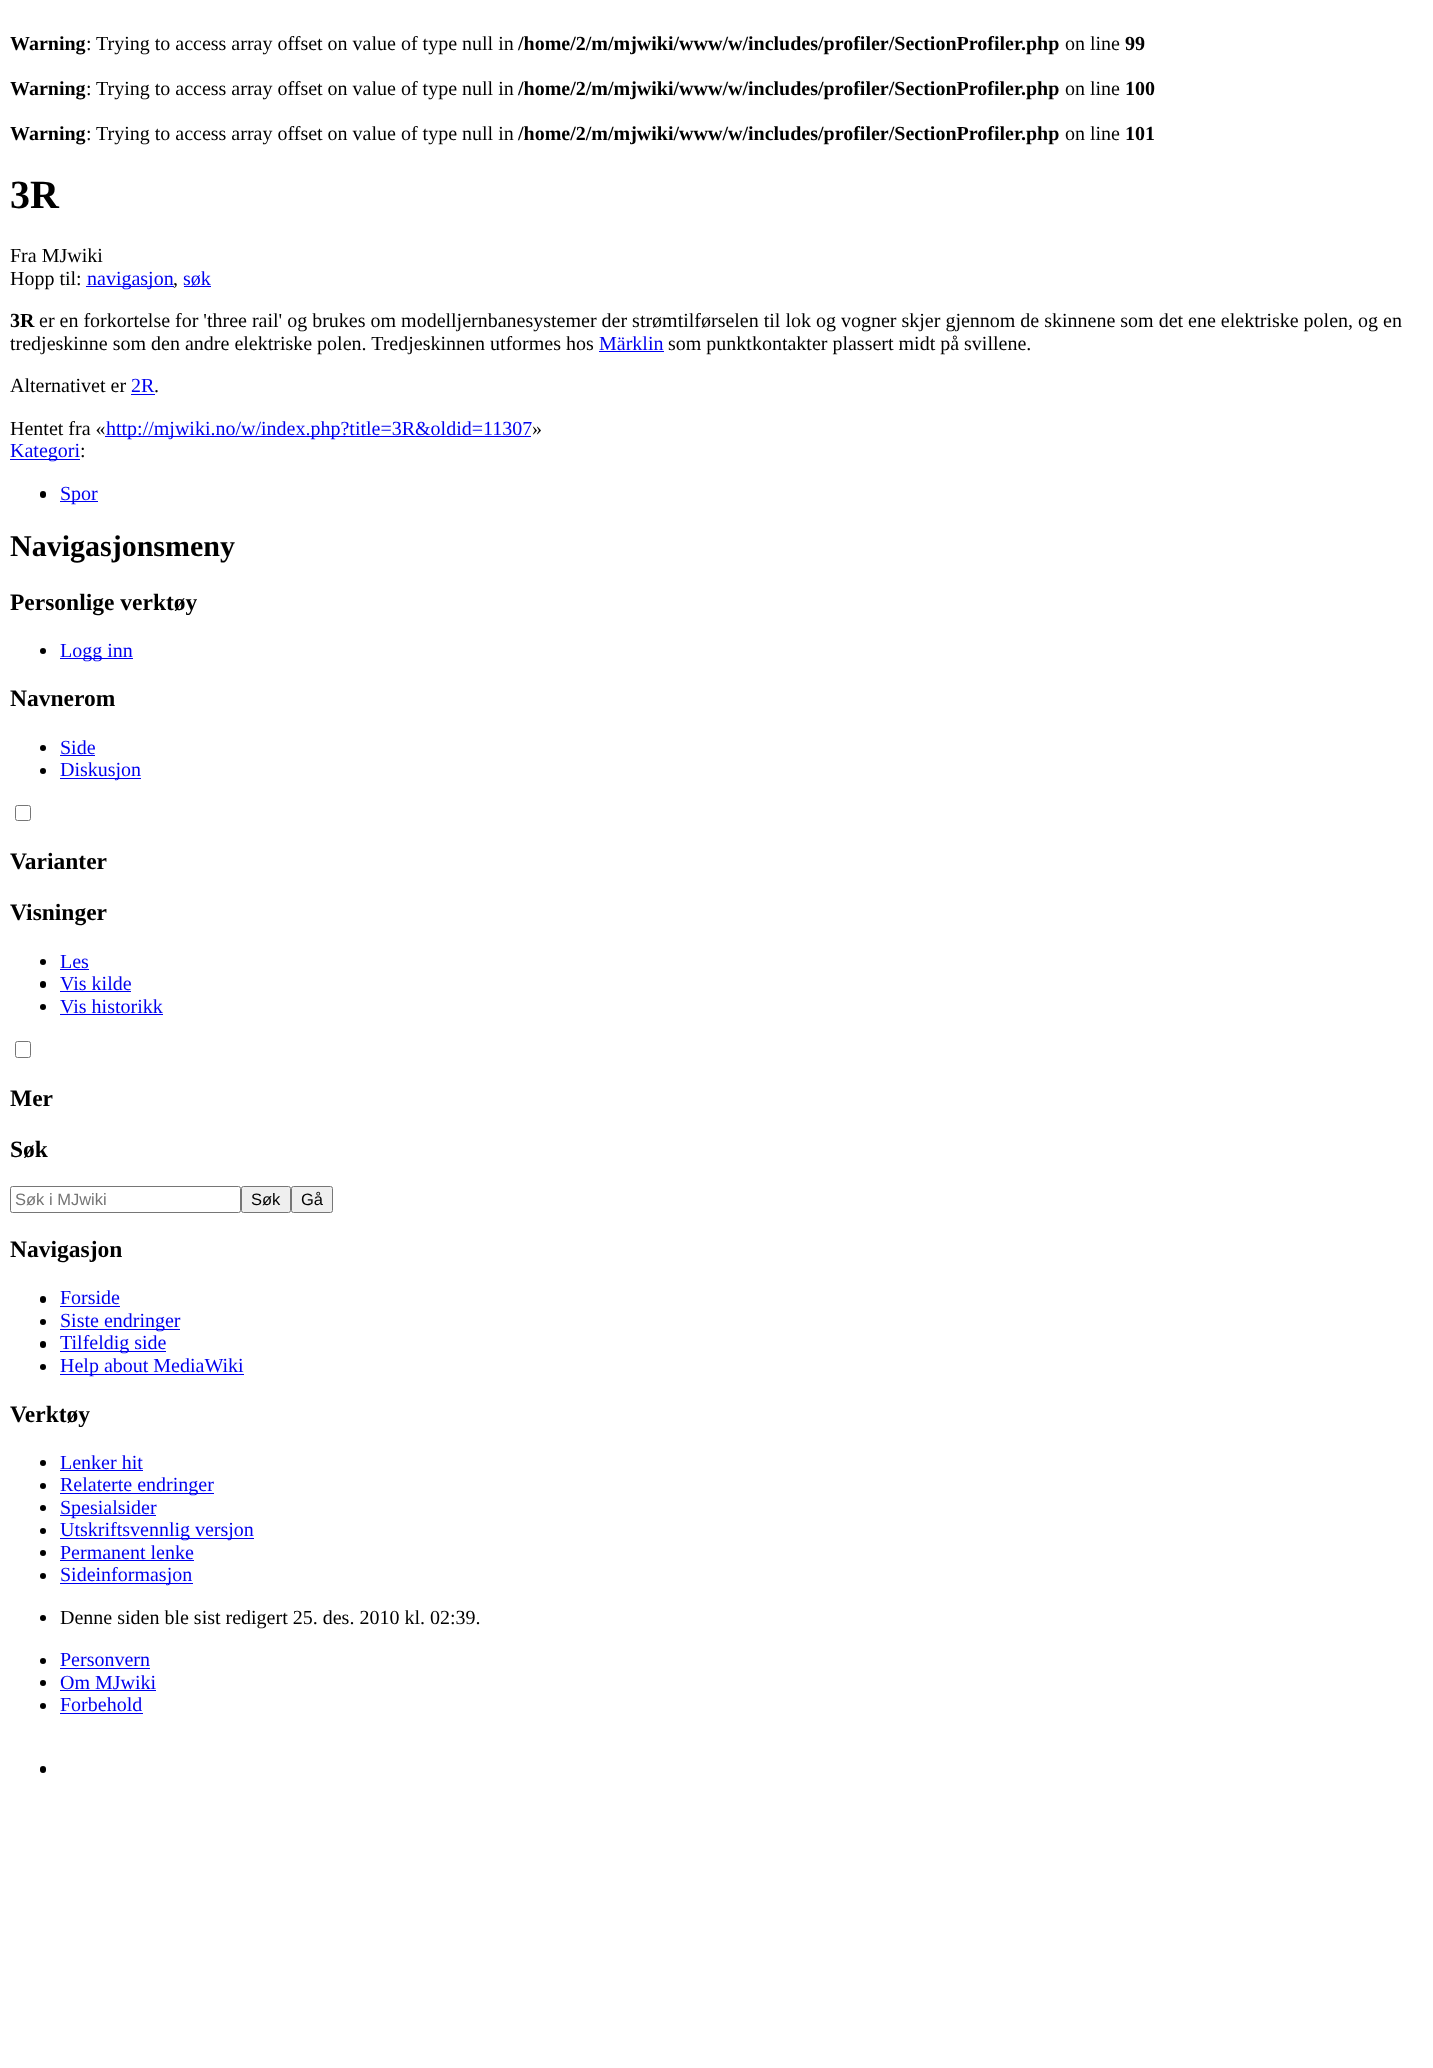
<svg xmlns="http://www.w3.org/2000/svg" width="1433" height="2068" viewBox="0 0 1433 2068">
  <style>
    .t1 { font: bold 20px Liberation Serif; fill: #000; }
    .t2 { font: 20px Liberation Serif; fill: #000; }
    .t3 { font: bold 40px Liberation Serif; fill: #000; }
    .t4 { font: 20px Liberation Serif; fill: #00e; }
    .t5 { font: bold 30px Liberation Serif; fill: #000; }
    .t6 { font: bold 23.5px Liberation Serif; fill: #000; }
    .t7 { font: 16.5px Liberation Sans; fill: #757575; }
    .t8 { font: 16.5px Liberation Sans; fill: #000; }
  </style>
  <rect width="100%" height="100%" fill="#fff"/>
  <text x="10" y="50" class="t1">Warning</text>
  <text x="86" y="50" class="t2">:</text>
  <text x="96" y="50" class="t2">Trying to access array offset on value of type null in</text>
  <text x="518" y="50" class="t1">/home/2/m/mjwiki/www/w/includes/profiler/SectionProfiler.php</text>
  <text x="1065" y="50" class="t2">on line</text>
  <text x="1125" y="50" class="t1">99</text>
  <text x="10" y="95" class="t1">Warning</text>
  <text x="86" y="95" class="t2">:</text>
  <text x="96" y="95" class="t2">Trying to access array offset on value of type null in</text>
  <text x="518" y="95" class="t1">/home/2/m/mjwiki/www/w/includes/profiler/SectionProfiler.php</text>
  <text x="1065" y="95" class="t2">on line</text>
  <text x="1125" y="95" class="t1">100</text>
  <text x="10" y="140" class="t1">Warning</text>
  <text x="86" y="140" class="t2">:</text>
  <text x="96" y="140" class="t2">Trying to access array offset on value of type null in</text>
  <text x="518" y="140" class="t1">/home/2/m/mjwiki/www/w/includes/profiler/SectionProfiler.php</text>
  <text x="1065" y="140" class="t2">on line</text>
  <text x="1125" y="140" class="t1">101</text>
  <text x="10" y="208" class="t3">3R</text>
  <text x="10" y="262" class="t2">Fra MJwiki</text>
  <text x="10" y="285" class="t2">Hopp til:</text>
  <rect x="86" y="286" width="88" height="1" fill="#00e"/>
  <text x="87" y="285" class="t4">navigasjon</text>
  <text x="173" y="285" class="t2">,</text>
  <text x="183" y="285" class="t4">søk</text>
  <rect x="184" y="286" width="27" height="1" fill="#00e"/>
  <text x="10" y="327" class="t1">3R</text>
  <text x="39" y="327" class="t2">er en forkortelse for 'three rail' og brukes om modelljernbanesystemer der strømtilførselen til lok og vogner skjer gjennom de skinnene som det ene elektriske polen, og en</text>
  <text x="10" y="350" class="t2">tredjeskinne som den andre elektriske polen. Tredjeskinnen utformes hos</text>
  <text x="599" y="350" class="t4">Märklin</text>
  <rect x="599" y="351" width="65" height="1" fill="#00e"/>
  <text x="668" y="350" class="t2">som punktkontakter plassert midt på svillene.</text>
  <text x="10" y="392" class="t2">Alternativet er</text>
  <text x="131" y="392" class="t4">2R</text>
  <rect x="131" y="394" width="24" height="1" fill="#00e"/>
  <text x="154" y="392" class="t2">.</text>
  <text x="10" y="435" class="t2">Hentet fra «</text>
  <rect x="105" y="436" width="426" height="1" fill="#00e"/>
  <text x="106" y="435" class="t4">http://mjwiki.no/w/index.php?title=3R&amp;oldid=11307</text>
  <text x="532" y="435" class="t2">»</text>
  <rect x="10" y="459" width="70" height="1" fill="#00e"/>
  <text x="10" y="457" class="t4">Kategori</text>
  <text x="80" y="457" class="t2">:</text>
  <rect x="40" y="491" width="6" height="7" rx="3" fill="#000"/>
  <rect x="60" y="501" width="38" height="1" fill="#00e"/>
  <text x="60" y="500" class="t4">Spor</text>
  <text x="10" y="556" class="t5">Navigasjonsmeny</text>
  <text x="10" y="610" class="t6">Personlige verktøy</text>
  <circle cx="43" cy="651" r="3" fill="#000"/>
  <rect x="60" y="658" width="73" height="1" fill="#00e"/>
  <text x="60" y="657" class="t4">Logg inn</text>
  <text x="10" y="706" class="t6">Navnerom</text>
  <circle cx="43" cy="748" r="3" fill="#000"/>
  <text x="60" y="754" class="t4">Side</text>
  <rect x="60" y="755" width="35" height="1" fill="#00e"/>
  <circle cx="43" cy="771" r="3" fill="#000"/>
  <rect x="60" y="778" width="81" height="1" fill="#00e"/>
  <text x="60" y="776" class="t4">Diskusjon</text>
  <rect x="15.5" y="805.5" width="15" height="15" rx="2" fill="none" stroke="#767676"/>
  <text x="10" y="869" class="t6">Varianter</text>
  <text x="10" y="920" class="t6">Visninger</text>
  <circle cx="43" cy="962" r="3" fill="#000"/>
  <text x="60" y="968" class="t4">Les</text>
  <rect x="60" y="969" width="29" height="1" fill="#00e"/>
  <rect x="40" y="981" width="6" height="7" rx="3" fill="#000"/>
  <text x="60" y="990" class="t4">Vis kilde</text>
  <rect x="60" y="991" width="71" height="1" fill="#00e"/>
  <circle cx="43" cy="1007" r="3" fill="#000"/>
  <text x="60" y="1013" class="t4">Vis historikk</text>
  <rect x="60" y="1014" width="103" height="1" fill="#00e"/>
  <rect x="15.5" y="1041.5" width="15" height="16" rx="2" fill="none" stroke="#767676"/>
  <text x="10" y="1106" class="t6">Mer</text>
  <text x="10" y="1157" class="t6">Søk</text>
  <rect x="10.5" y="1186.5" width="230" height="26" rx="2" fill="none" stroke="#767676"/>
  <text x="15" y="1205" class="t7">Søk i MJwiki</text>
  <rect x="241.5" y="1186.5" width="49" height="26" rx="2" fill="#efefef" stroke="#767676"/>
  <text x="251" y="1205" class="t8">Søk</text>
  <rect x="291.5" y="1186.5" width="41" height="26" rx="2" fill="#efefef" stroke="#767676"/>
  <text x="301" y="1205" class="t8">Gå</text>
  <text x="10" y="1257" class="t6">Navigasjon</text>
  <rect x="40" y="1296" width="6" height="7" rx="3" fill="#000"/>
  <text x="60" y="1304" class="t4">Forside</text>
  <rect x="60" y="1306" width="60" height="1" fill="#00e"/>
  <circle cx="43" cy="1322" r="3" fill="#000"/>
  <rect x="60" y="1329" width="120" height="1" fill="#00e"/>
  <text x="60" y="1327" class="t4">Siste endringer</text>
  <rect x="40" y="1341" width="6" height="7" rx="3" fill="#000"/>
  <rect x="60" y="1351" width="106" height="1" fill="#00e"/>
  <text x="60" y="1349" class="t4">Tilfeldig side</text>
  <circle cx="43" cy="1367" r="3" fill="#000"/>
  <rect x="60" y="1374" width="184" height="1" fill="#00e"/>
  <text x="60" y="1372" class="t4">Help about MediaWiki</text>
  <text x="10" y="1422" class="t6">Verktøy</text>
  <circle cx="43" cy="1463" r="3" fill="#000"/>
  <text x="60" y="1469" class="t4">Lenker hit</text>
  <rect x="60" y="1470" width="83" height="1" fill="#00e"/>
  <circle cx="43" cy="1486" r="3" fill="#000"/>
  <rect x="60" y="1493" width="154" height="1" fill="#00e"/>
  <text x="60" y="1491" class="t4">Relaterte endringer</text>
  <circle cx="43" cy="1508" r="3" fill="#000"/>
  <rect x="60" y="1515" width="96" height="1" fill="#00e"/>
  <text x="60" y="1514" class="t4">Spesialsider</text>
  <circle cx="43" cy="1531" r="3" fill="#000"/>
  <rect x="60" y="1538" width="194" height="1" fill="#00e"/>
  <text x="60" y="1536" class="t4">Utskriftsvennlig versjon</text>
  <circle cx="43" cy="1553" r="3" fill="#000"/>
  <text x="60" y="1559" class="t4">Permanent lenke</text>
  <rect x="60" y="1560" width="134" height="1" fill="#00e"/>
  <circle cx="43" cy="1576" r="3" fill="#000"/>
  <rect x="60" y="1583" width="133" height="1" fill="#00e"/>
  <text x="60" y="1581" class="t4">Sideinformasjon</text>
  <circle cx="43" cy="1618" r="3" fill="#000"/>
  <text x="60" y="1624" class="t2">Denne siden ble sist redigert 25. des. 2010 kl. 02:39.</text>
  <circle cx="43" cy="1661" r="3" fill="#000"/>
  <text x="60" y="1666" class="t4">Personvern</text>
  <rect x="60" y="1668" width="90" height="1" fill="#00e"/>
  <circle cx="43" cy="1683" r="3" fill="#000"/>
  <text x="60" y="1689" class="t4">Om MJwiki</text>
  <rect x="60" y="1690" width="96" height="1" fill="#00e"/>
  <circle cx="43" cy="1706" r="3" fill="#000"/>
  <text x="60" y="1711" class="t4">Forbehold</text>
  <rect x="60" y="1713" width="83" height="1" fill="#00e"/>
  <rect x="40" y="1766" width="6" height="7" rx="3" fill="#000"/>
</svg>
